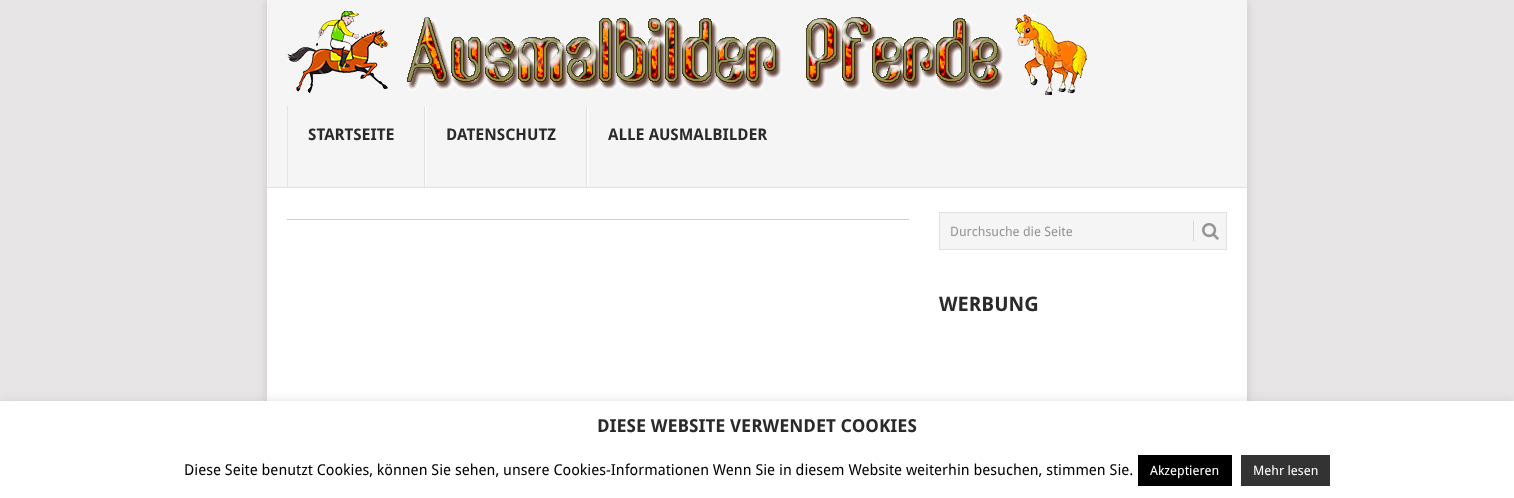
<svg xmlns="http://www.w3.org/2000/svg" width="1514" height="498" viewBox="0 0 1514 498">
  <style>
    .t1 { font: bold 16px Droid Sans; fill: #2a2a2a; }
    .t2 { font: 13px Droid Sans; fill: #959595; }
    .t3 { font: bold 20px Droid Sans; fill: #2a2a2a; }
    .t4 { font: bold 18px Droid Sans; fill: #2a2a2a; }
    .t5 { font: 15px Droid Sans; fill: #000; }
    .t6 { font: 13px Droid Sans; fill: #fff; }
  </style>
  <rect width="100%" height="100%" fill="#e7e5e6"/>
  <rect x="267" y="0" width="980" height="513" fill="#3232322b" filter="blur(5px)"/>
  <rect x="267" y="188" width="980" height="213" fill="#fff"/>
  <rect x="267" y="0" width="980" height="187" fill="#f5f5f5"/>
  <image x="287" y="11" width="800" height="84" href="images/1.png"/>
  <rect x="424" y="106" width="1" height="82" fill="#e2e2e2"/>
  <rect x="287" y="106" width="1" height="82" fill="#e2e2e2"/>
  <text x="308" y="140" class="t1">STARTSEITE</text>
  <rect x="586" y="106" width="1" height="82" fill="#e2e2e2"/>
  <rect x="425" y="106" width="1" height="82" fill="#fff"/>
  <text x="446" y="140" class="t1">DATENSCHUTZ</text>
  <rect x="587" y="106" width="1" height="82" fill="#fff"/>
  <text x="608" y="140" class="t1">ALLE AUSMALBILDER</text>
  <rect x="267" y="187" width="980" height="1" fill="#e2e2e2"/>
  <rect x="287" y="219" width="622" height="1" fill="#ccc"/>
  <rect x="939.5" y="212.5" width="287" height="37" fill="#f5f5f5" stroke="#e2e2e2"/>
  <text x="950" y="236" class="t2">Durchsuche die Seite</text>
  <rect x="1193" y="221" width="1" height="20" fill="#d8d8d8"/>
  <image x="1202" y="223" width="17" height="17" href="images/2.png"/>
  <text x="939" y="311" class="t3">WERBUNG</text>
  <rect x="0" y="400" width="1514" height="97" fill="#acabab4d" filter="blur(5px)"/>
  <rect x="0" y="401" width="1514" height="97" fill="#fff"/>
  <text x="597" y="432" class="t4">DIESE WEBSITE VERWENDET COOKIES</text>
  <text x="184" y="475" class="t5">Diese Seite benutzt Cookies, können Sie sehen, unsere Cookies-Informationen Wenn Sie in diesem Website weiterhin besuchen, stimmen Sie.</text>
  <rect x="1138" y="455" width="94" height="31" fill="#000"/>
  <text x="1150" y="475" class="t6">Akzeptieren</text>
  <rect x="1241" y="455" width="89" height="31" fill="#333"/>
  <text x="1253" y="475" class="t6">Mehr lesen</text>
</svg>
